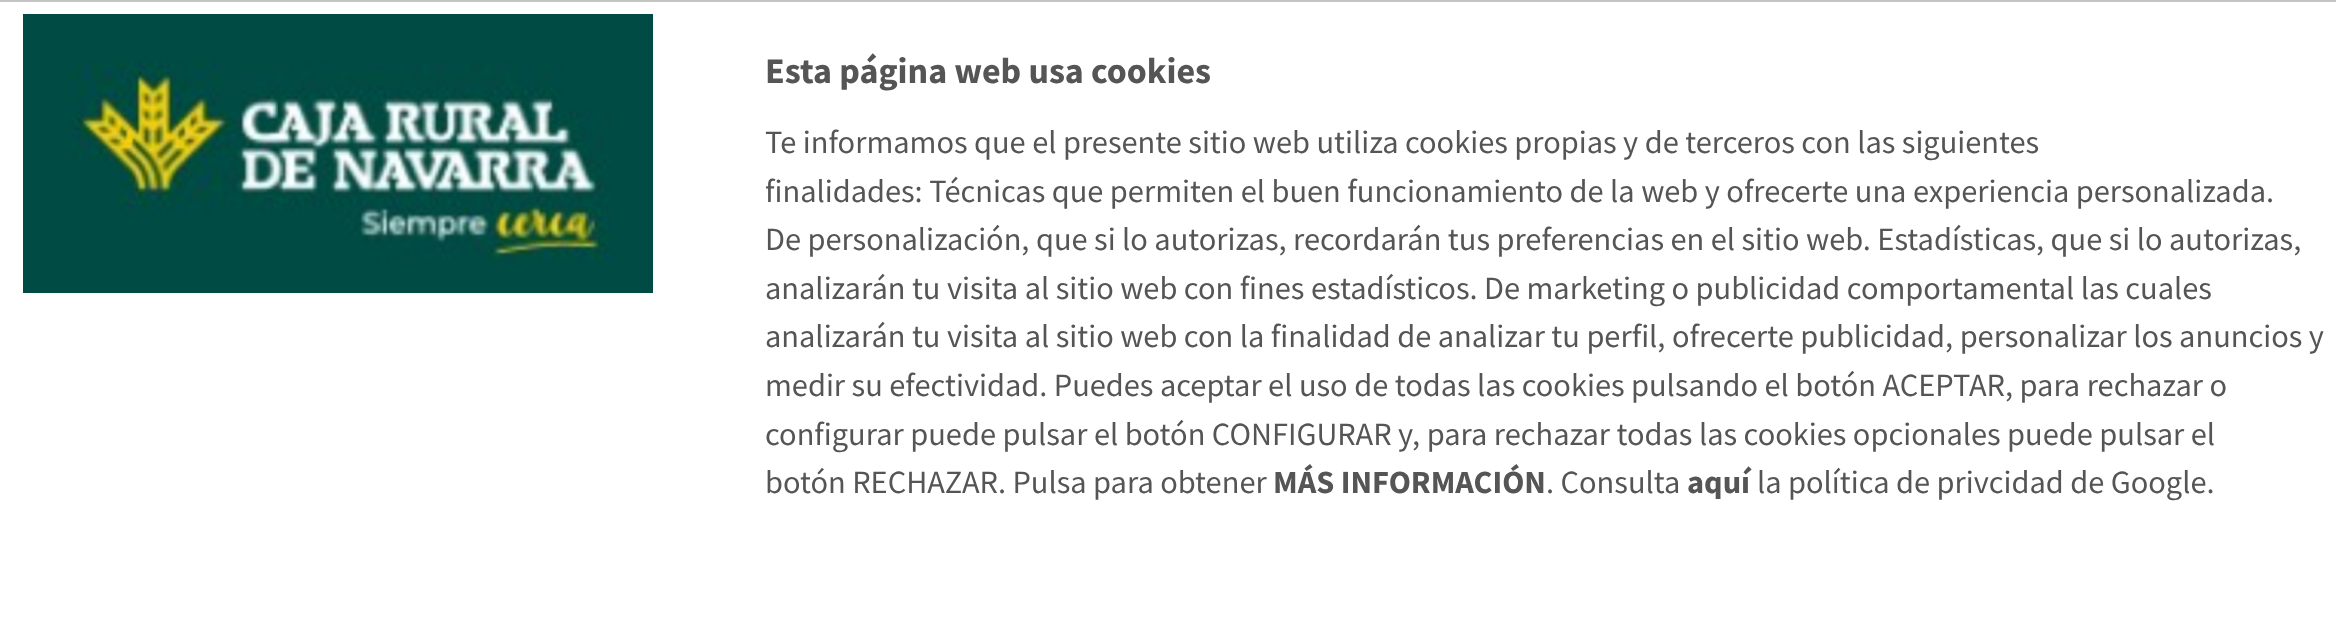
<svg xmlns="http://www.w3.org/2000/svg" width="2336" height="633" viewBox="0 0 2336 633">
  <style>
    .t1 { font: bold 36px Source Sans Pro; fill: #555; }
    .t2 { font: 32.4px Source Sans Pro; fill: #555; }
    .t3 { font: bold 32.4px Source Sans Pro; fill: #555; }
  </style>
  <rect width="100%" height="100%" fill="#fff"/>
  <rect x="0" y="0" width="2336" height="2" fill="#c4c4c4"/>
  <image x="23" y="14" width="630" height="279" href="images/1.png"/>
  <text x="765" y="83" class="t1">Esta página web usa cookies</text>
  <text x="765" y="153" class="t2">Te informamos que el presente sitio web utiliza cookies propias y de terceros con las siguientes</text>
  <text x="765" y="202" class="t2">finalidades: Técnicas que permiten el buen funcionamiento de la web y ofrecerte una experiencia personalizada.</text>
  <text x="765" y="250" class="t2">De personalización, que si lo autorizas, recordarán tus preferencias en el sitio web. Estadísticas, que si lo autorizas,</text>
  <text x="765" y="299" class="t2">analizarán tu visita al sitio web con fines estadísticos. De marketing o publicidad comportamental las cuales</text>
  <text x="765" y="347" class="t2">analizarán tu visita al sitio web con la finalidad de analizar tu perfil, ofrecerte publicidad, personalizar los anuncios y</text>
  <text x="765" y="396" class="t2">medir su efectividad. Puedes aceptar el uso de todas las cookies pulsando el botón ACEPTAR, para rechazar o</text>
  <text x="765" y="445" class="t2">configurar puede pulsar el botón CONFIGURAR y, para rechazar todas las cookies opcionales puede pulsar el</text>
  <text x="765" y="493" class="t2">botón RECHAZAR. Pulsa para obtener</text>
  <text x="1273" y="493" class="t3">MÁS INFORMACIÓN</text>
  <text x="1546" y="493" class="t2">. Consulta</text>
  <text x="1687" y="493" class="t3">aquí</text>
  <text x="1757" y="493" class="t2">la política de privcidad de Google.</text>
</svg>
